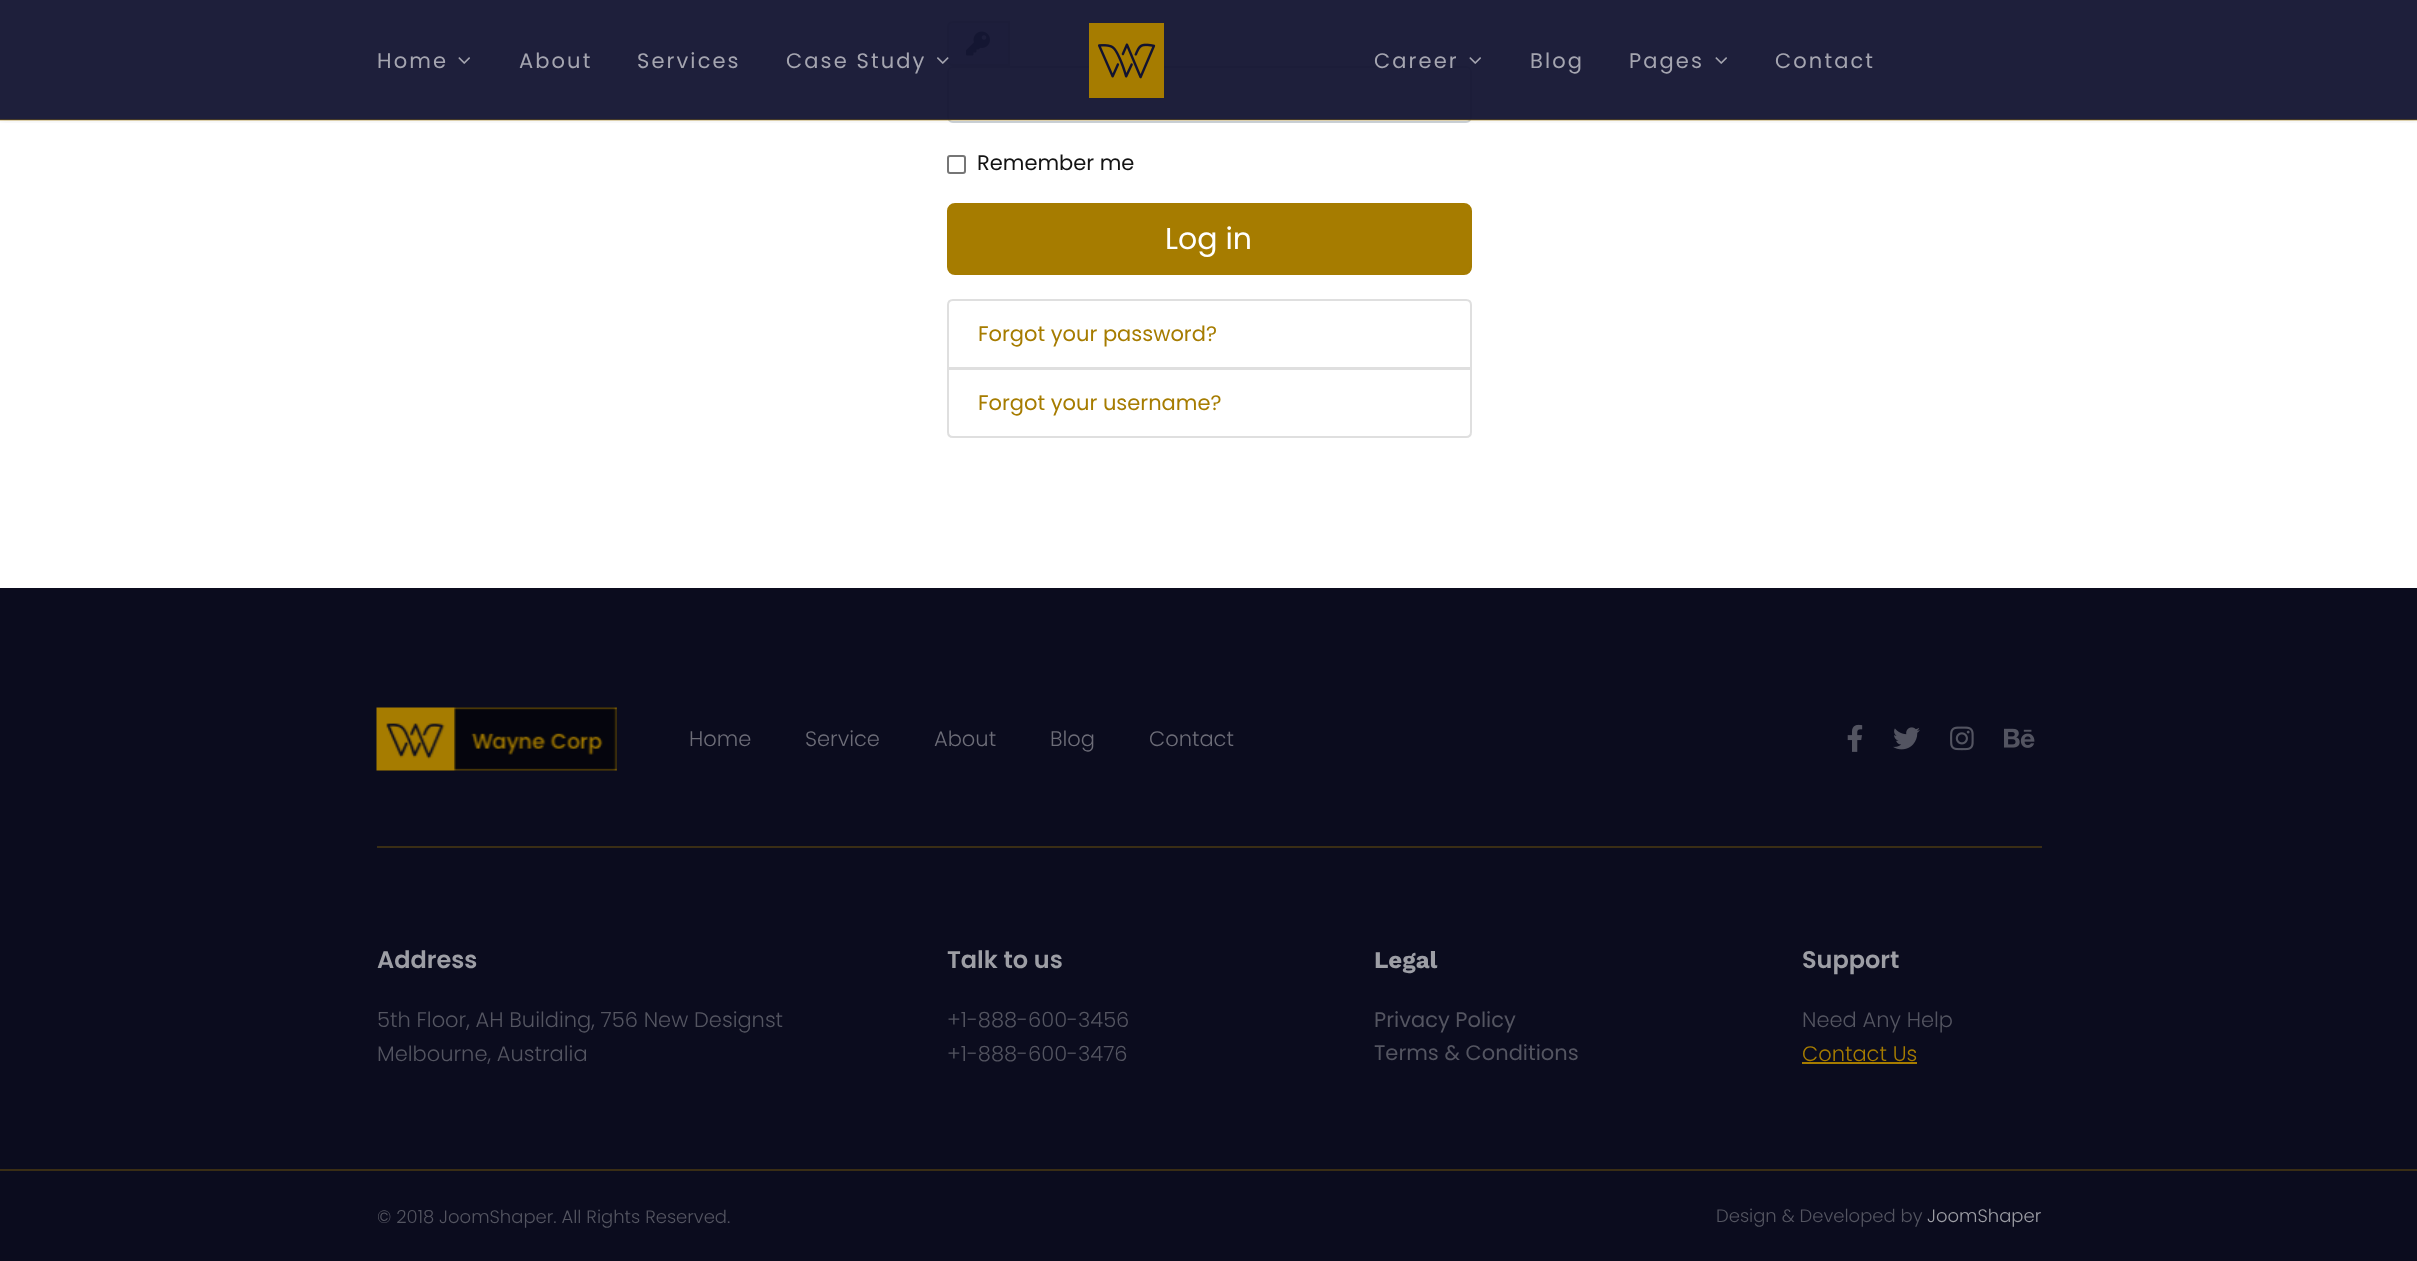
<svg xmlns="http://www.w3.org/2000/svg" width="2417" height="1261" viewBox="0 0 2417 1261">
  <style>
    .t1 { font: 21px Poppins; letter-spacing: 2.1px; fill: #a5a5b0; }
    .t2 { font: 21px Poppins; fill: #131313; }
    .t3 { font: 30px Poppins; fill: #fff; }
    .t4 { font: 21px Poppins; fill: #a67c00; }
    .t5 { font: 300 21px Poppins; fill: #6d6d78; }
    .t6 { font: 600 24px Poppins; fill: #9d9ea5; }
    .t7 { font: 300 21px Poppins; fill: #545561; }
    .t8 { font: bold 24px Work Sans; fill: #9d9ea5; }
    .t9 { font: 21px Poppins; fill: #545561; }
    .t10 { font: 300 21px Poppins; fill: #a67c00; }
    .t11 { font: 300 18px Poppins; fill: #545561; }
    .t12 { font: 300 18px Poppins; fill: #9d9ea5; }
  </style>
  <defs>
    <clipPath id="clip1"><rect x="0" y="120" width="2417" height="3"/></clipPath>
  </defs>
  <rect width="100%" height="100%" fill="#fff"/>
  <path d="M953 22H1009V65H953C950 65 948 63 948 60V27C948 24 950 22 953 22Z" fill="#e9ecef" stroke="#ced4da" stroke-width="2"/>
  <image x="966" y="31" width="24" height="25" href="images/4.png"/>
  <rect x="948" y="67" width="523" height="55" rx="5" fill="none" stroke="#ced4da" stroke-width="2"/>
  <g clip-path="url(#clip1)">
    <rect x="0" y="0" width="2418" height="120" fill="#0000001a" filter="blur(3px)"/>
  </g>
  <rect x="0" y="0" width="2417" height="120" fill="#121330f2"/>
  <rect x="0" y="119" width="2417" height="2" fill="#a67c004d"/>
  <text x="377" y="68" class="t1">Home</text>
  <image x="458" y="57" width="12" height="7" href="images/1.png"/>
  <text x="519" y="68" class="t1">About</text>
  <text x="637" y="68" class="t1">Services</text>
  <text x="786" y="68" class="t1">Case Study</text>
  <image x="937" y="57" width="12" height="7" href="images/2.png"/>
  <image x="1089" y="23" width="75" height="75" href="images/3.png"/>
  <text x="1374" y="68" class="t1">Career</text>
  <image x="1469" y="57" width="12" height="7" href="images/1.png"/>
  <text x="1530" y="68" class="t1">Blog</text>
  <text x="1629" y="68" class="t1">Pages</text>
  <image x="1715" y="57" width="12" height="7" href="images/1.png"/>
  <text x="1775" y="68" class="t1">Contact</text>
  <rect x="948" y="156" width="17" height="17" rx="2" fill="none" stroke="#767676" stroke-width="2"/>
  <text x="977" y="170" class="t2">Remember me</text>
  <rect x="948" y="204" width="523" height="70" rx="7" fill="#a67c00" stroke="#a67c00" stroke-width="2"/>
  <text x="1165" y="249" class="t3">Log in</text>
  <path d="M953 300H1466C1469 300 1471 302 1471 305V368H948V305C948 302 950 300 953 300Z" fill="none" stroke="#dfdfdf" stroke-width="2"/>
  <text x="978" y="341" class="t4">Forgot your password?</text>
  <path d="M948 369H1471V432C1471 435 1469 437 1466 437H953C950 437 948 435 948 432Z" fill="#fff" stroke="#dfdfdf" stroke-width="2"/>
  <text x="978" y="410" class="t4">Forgot your username?</text>
  <rect x="0" y="588" width="2417" height="581" fill="#0b0c1e"/>
  <rect x="377" y="846" width="1665" height="2" fill="#3a2e15"/>
  <image x="376" y="707" width="241" height="64" href="images/5.png"/>
  <text x="689" y="746" class="t5">Home</text>
  <text x="805" y="746" class="t5">Service</text>
  <text x="934" y="746" class="t5">About</text>
  <text x="1050" y="746" class="t5">Blog</text>
  <text x="1149" y="746" class="t5">Contact</text>
  <image x="1847" y="724" width="16" height="28" href="images/6.png"/>
  <image x="1893" y="727" width="27" height="23" href="images/7.png"/>
  <image x="1950" y="726" width="24" height="25" href="images/8.png"/>
  <image x="2004" y="728" width="31" height="20" href="images/9.png"/>
  <text x="377" y="968" class="t6">Address</text>
  <text x="377" y="1027" class="t7">5th Floor, AH Building, 756 New Designst</text>
  <text x="377" y="1061" class="t7">Melbourne, Australia</text>
  <text x="947" y="968" class="t6">Talk to us</text>
  <text x="947" y="1027" class="t7">+1-888-600-3456</text>
  <text x="947" y="1061" class="t7">+1-888-600-3476</text>
  <text x="1374" y="968" class="t8">Legal</text>
  <text x="1374" y="1027" class="t9">Privacy Policy</text>
  <text x="1374" y="1060" class="t9">Terms &amp; Conditions</text>
  <text x="1802" y="968" class="t6">Support</text>
  <text x="1802" y="1027" class="t7">Need Any Help</text>
  <text x="1802" y="1061" class="t10">Contact Us</text>
  <rect x="1802" y="1062" width="115" height="2" fill="#a67c00"/>
  <rect x="0" y="1171" width="2417" height="90" fill="#0b0c1e"/>
  <rect x="0" y="1169" width="2417" height="2" fill="#3a2e15"/>
  <text x="377" y="1223" class="t11">© 2018 JoomShaper. All Rights Reserved.</text>
  <text x="1716" y="1222" class="t11">Design &amp; Developed by</text>
  <text x="1927" y="1222" class="t12">JoomShaper</text>
</svg>
